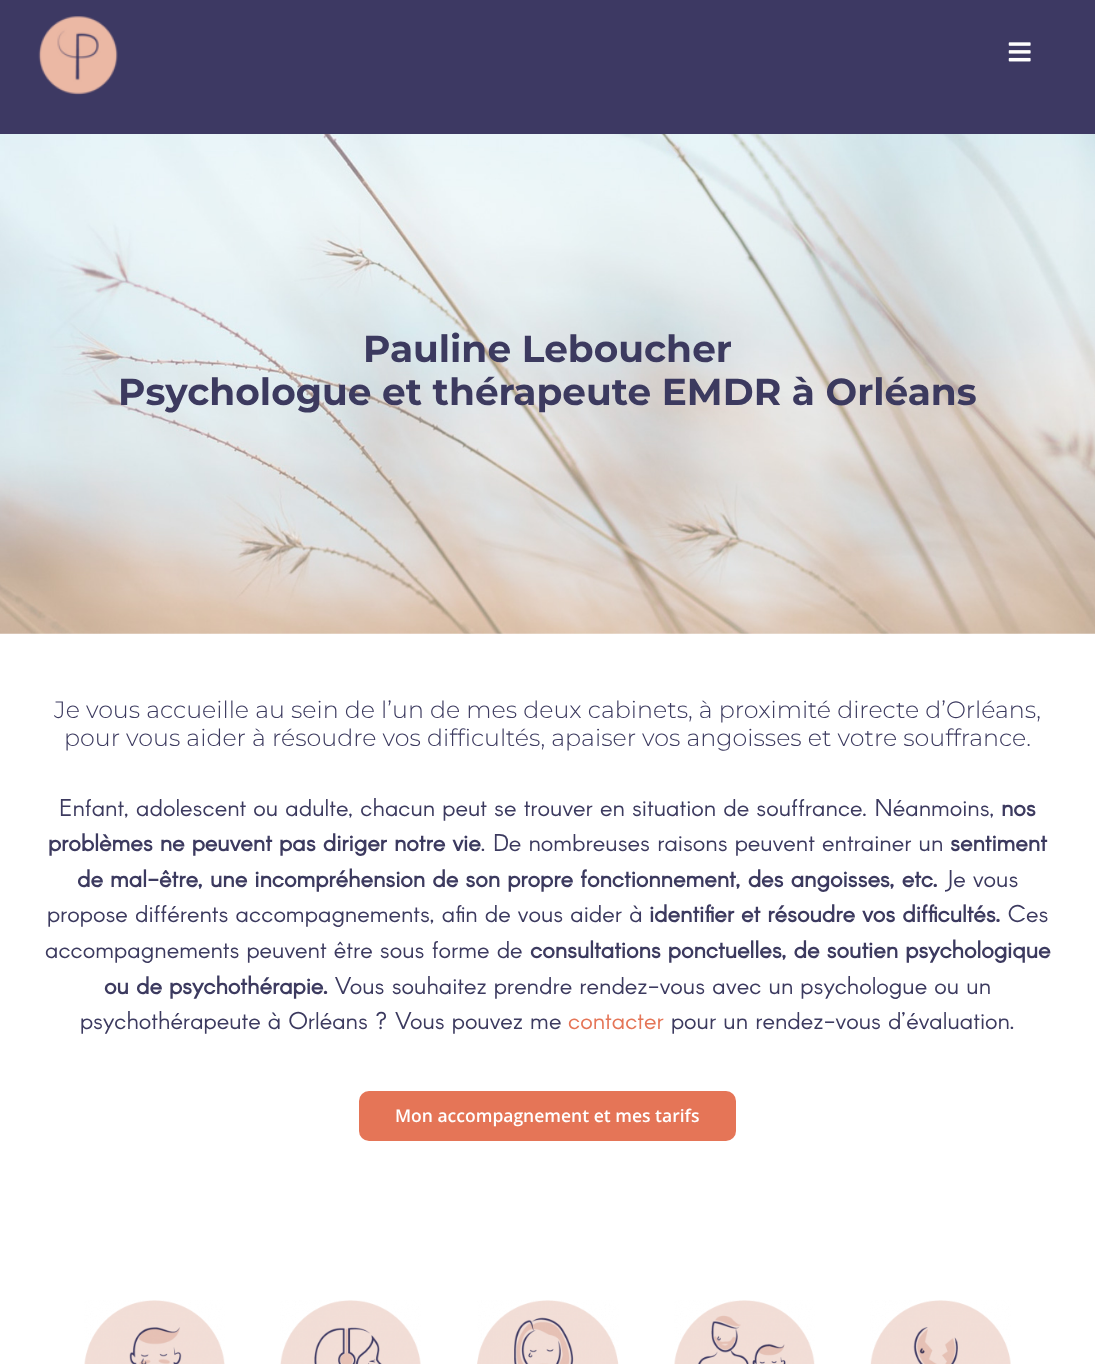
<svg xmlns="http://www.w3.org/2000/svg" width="1095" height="1364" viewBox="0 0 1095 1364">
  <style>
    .t1 { font: bold 37.5px Montserrat; fill: #3c3a5f; }
    .t2 { font: 300 23.75px Montserrat; fill: #3c3a5f; }
    .t3 { font: 23.75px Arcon; fill: #3c3a5f; }
    .t4 { font: bold 23.75px Arcon; fill: #3c3a5f; }
    .t5 { font: 23.75px Arcon; fill: #e57557; }
    .t6 { font: 600 17.5px Open Sans; fill: #fff; }
  </style>
  <rect width="100%" height="100%" fill="#fff"/>
  <rect x="0" y="0" width="1095" height="134" fill="#3d3963"/>
  <image x="38" y="16" width="80" height="79" href="images/1.png"/>
  <image x="1008" y="42" width="23" height="20" href="images/2.png"/>
  <image x="0" y="134" width="1095" height="500" href="images/3.png"/>
  <text x="363" y="362" class="t1">Pauline Leboucher</text>
  <text x="118" y="405" class="t1">Psychologue et thérapeute EMDR à Orléans</text>
  <text x="54" y="718" class="t2">Je vous accueille au sein de l’un de mes deux cabinets, à proximité directe d’Orléans,</text>
  <text x="64" y="746" class="t2">pour vous aider à résoudre vos difficultés, apaiser vos angoisses et votre souffrance.</text>
  <text x="59" y="816" class="t3">Enfant, adolescent ou adulte, chacun peut se trouver en situation de souffrance. Néanmoins,</text>
  <text x="1001" y="816" class="t4">nos</text>
  <text x="48" y="851" class="t4">problèmes ne peuvent pas diriger notre vie</text>
  <text x="481" y="851" class="t3">. De nombreuses raisons peuvent entrainer un</text>
  <text x="950" y="851" class="t4">sentiment</text>
  <text x="77" y="887" class="t4">de mal-être, une incompréhension de son propre fonctionnement, des angoisses, etc.</text>
  <text x="945" y="887" class="t3">Je vous</text>
  <text x="47" y="922" class="t3">propose différents accompagnements, afin de vous aider à</text>
  <text x="649" y="922" class="t4">identifier et résoudre vos difficultés.</text>
  <text x="1008" y="922" class="t3">Ces</text>
  <text x="45" y="958" class="t3">accompagnements peuvent être sous forme de</text>
  <text x="530" y="958" class="t4">consultations ponctuelles, de soutien psychologique</text>
  <text x="104" y="994" class="t4">ou de psychothérapie.</text>
  <text x="335" y="994" class="t3">Vous souhaitez prendre rendez-vous avec un psychologue ou un</text>
  <text x="80" y="1029" class="t3">psychothérapeute à Orléans ? Vous pouvez me</text>
  <text x="568" y="1029" class="t5">contacter</text>
  <text x="671" y="1029" class="t3">pour un rendez-vous d’évaluation.</text>
  <rect x="359" y="1091" width="377" height="50" rx="10" fill="#e57557"/>
  <text x="395" y="1122" class="t6">Mon accompagnement et mes tarifs</text>
  <image x="84" y="1300" width="141" height="64" href="images/4.png"/>
  <image x="280" y="1300" width="141" height="64" href="images/5.png"/>
  <image x="477" y="1300" width="142" height="64" href="images/6.png"/>
  <image x="674" y="1300" width="141" height="64" href="images/7.png"/>
  <image x="870" y="1300" width="141" height="64" href="images/8.png"/>
</svg>
